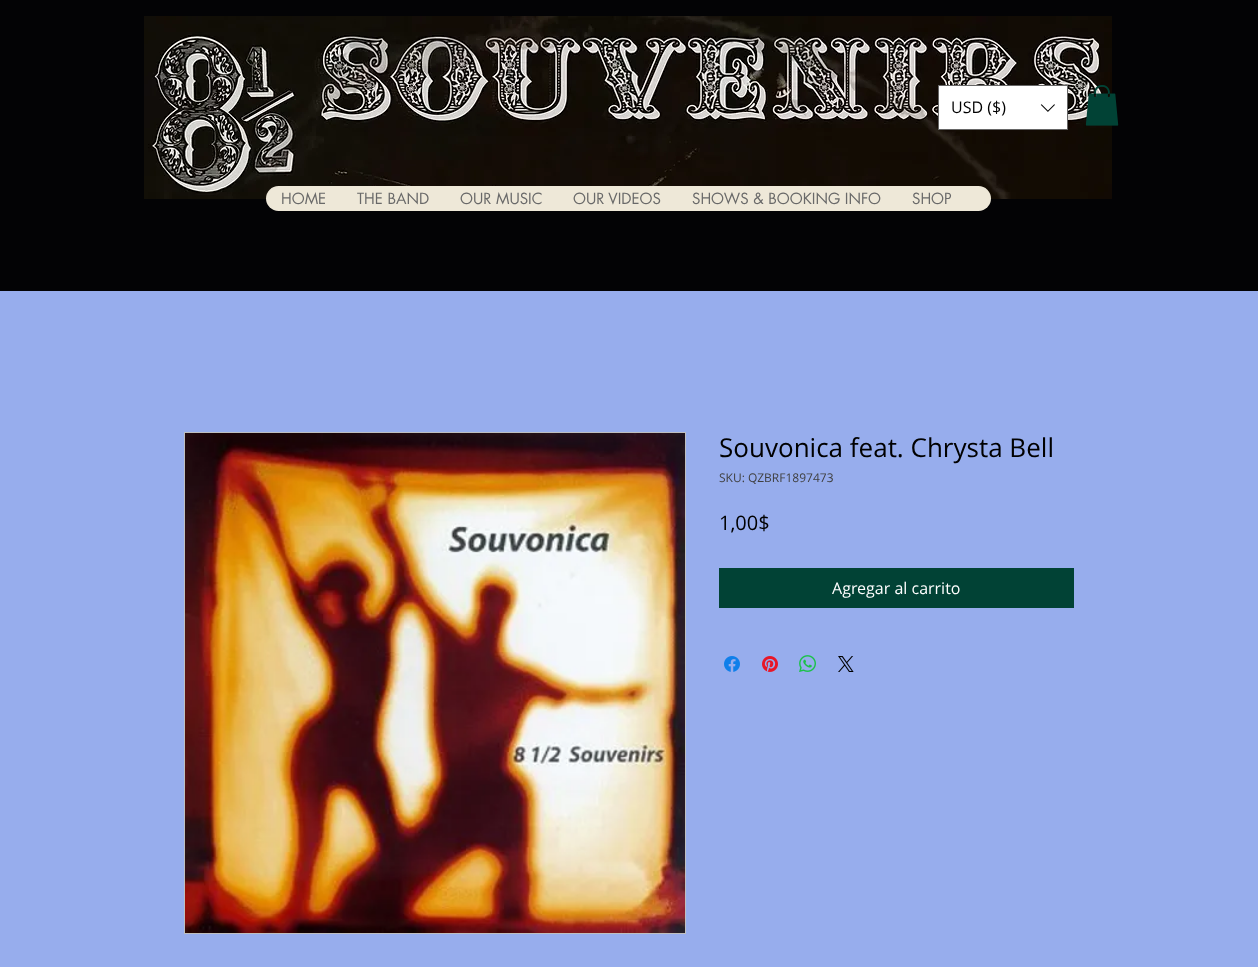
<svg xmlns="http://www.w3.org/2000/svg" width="1258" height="967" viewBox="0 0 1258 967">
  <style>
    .t1 { font: 16px Open Sans; fill: #000; }
    .t2 { font: 15px futura; fill: #696969; }
    .t3 { font: 26px Open Sans; fill: #000; }
    .t4 { font: 12px Open Sans; fill: #404040; }
    .t5 { font: 20px Open Sans; fill: #000; }
    .t6 { font: 16px Open Sans; fill: #fff; }
  </style>
  <rect width="100%" height="100%" fill="#97aded"/>
  <rect x="0" y="0" width="1258" height="291" fill="#030305"/>
  <image x="144" y="16" width="968" height="183" href="images/1.png"/>
  <rect x="938.5" y="85.5" width="129" height="44" fill="#fff" stroke="#666"/>
  <text x="951" y="113" class="t1">USD ($)</text>
  <image x="1040" y="104" width="15" height="8" href="images/2.png"/>
  <image x="1085" y="85" width="34" height="41" href="images/3.png"/>
  <rect x="266" y="186" width="725" height="25" rx="12.5" fill="#eee8d8"/>
  <text x="281" y="204" class="t2">HOME</text>
  <text x="357" y="204" class="t2">THE BAND</text>
  <text x="460" y="204" class="t2">OUR MUSIC</text>
  <text x="573" y="204" class="t2">OUR VIDEOS</text>
  <text x="692" y="204" class="t2">SHOWS &amp; BOOKING INFO</text>
  <text x="912" y="204" class="t2">SHOP</text>
  <rect x="184.5" y="432.5" width="501" height="501" fill="none" stroke="#bfbfbf"/>
  <image x="185" y="433" width="500" height="500" href="images/4.png"/>
  <text x="719" y="457" class="t3">Souvonica feat. Chrysta Bell</text>
  <text x="719" y="482" class="t4">SKU: QZBRF1897473</text>
  <text x="719" y="530" class="t5">1,00$</text>
  <rect x="719" y="568" width="355" height="40" fill="#014235"/>
  <text x="832" y="594" class="t6">Agregar al carrito</text>
  <image x="724" y="656" width="16" height="16" href="images/5.png"/>
  <image x="762" y="656" width="16" height="16" href="images/6.png"/>
  <image x="799" y="655" width="17" height="17" href="images/7.png"/>
  <image x="838" y="656" width="16" height="16" href="images/8.png"/>
</svg>
